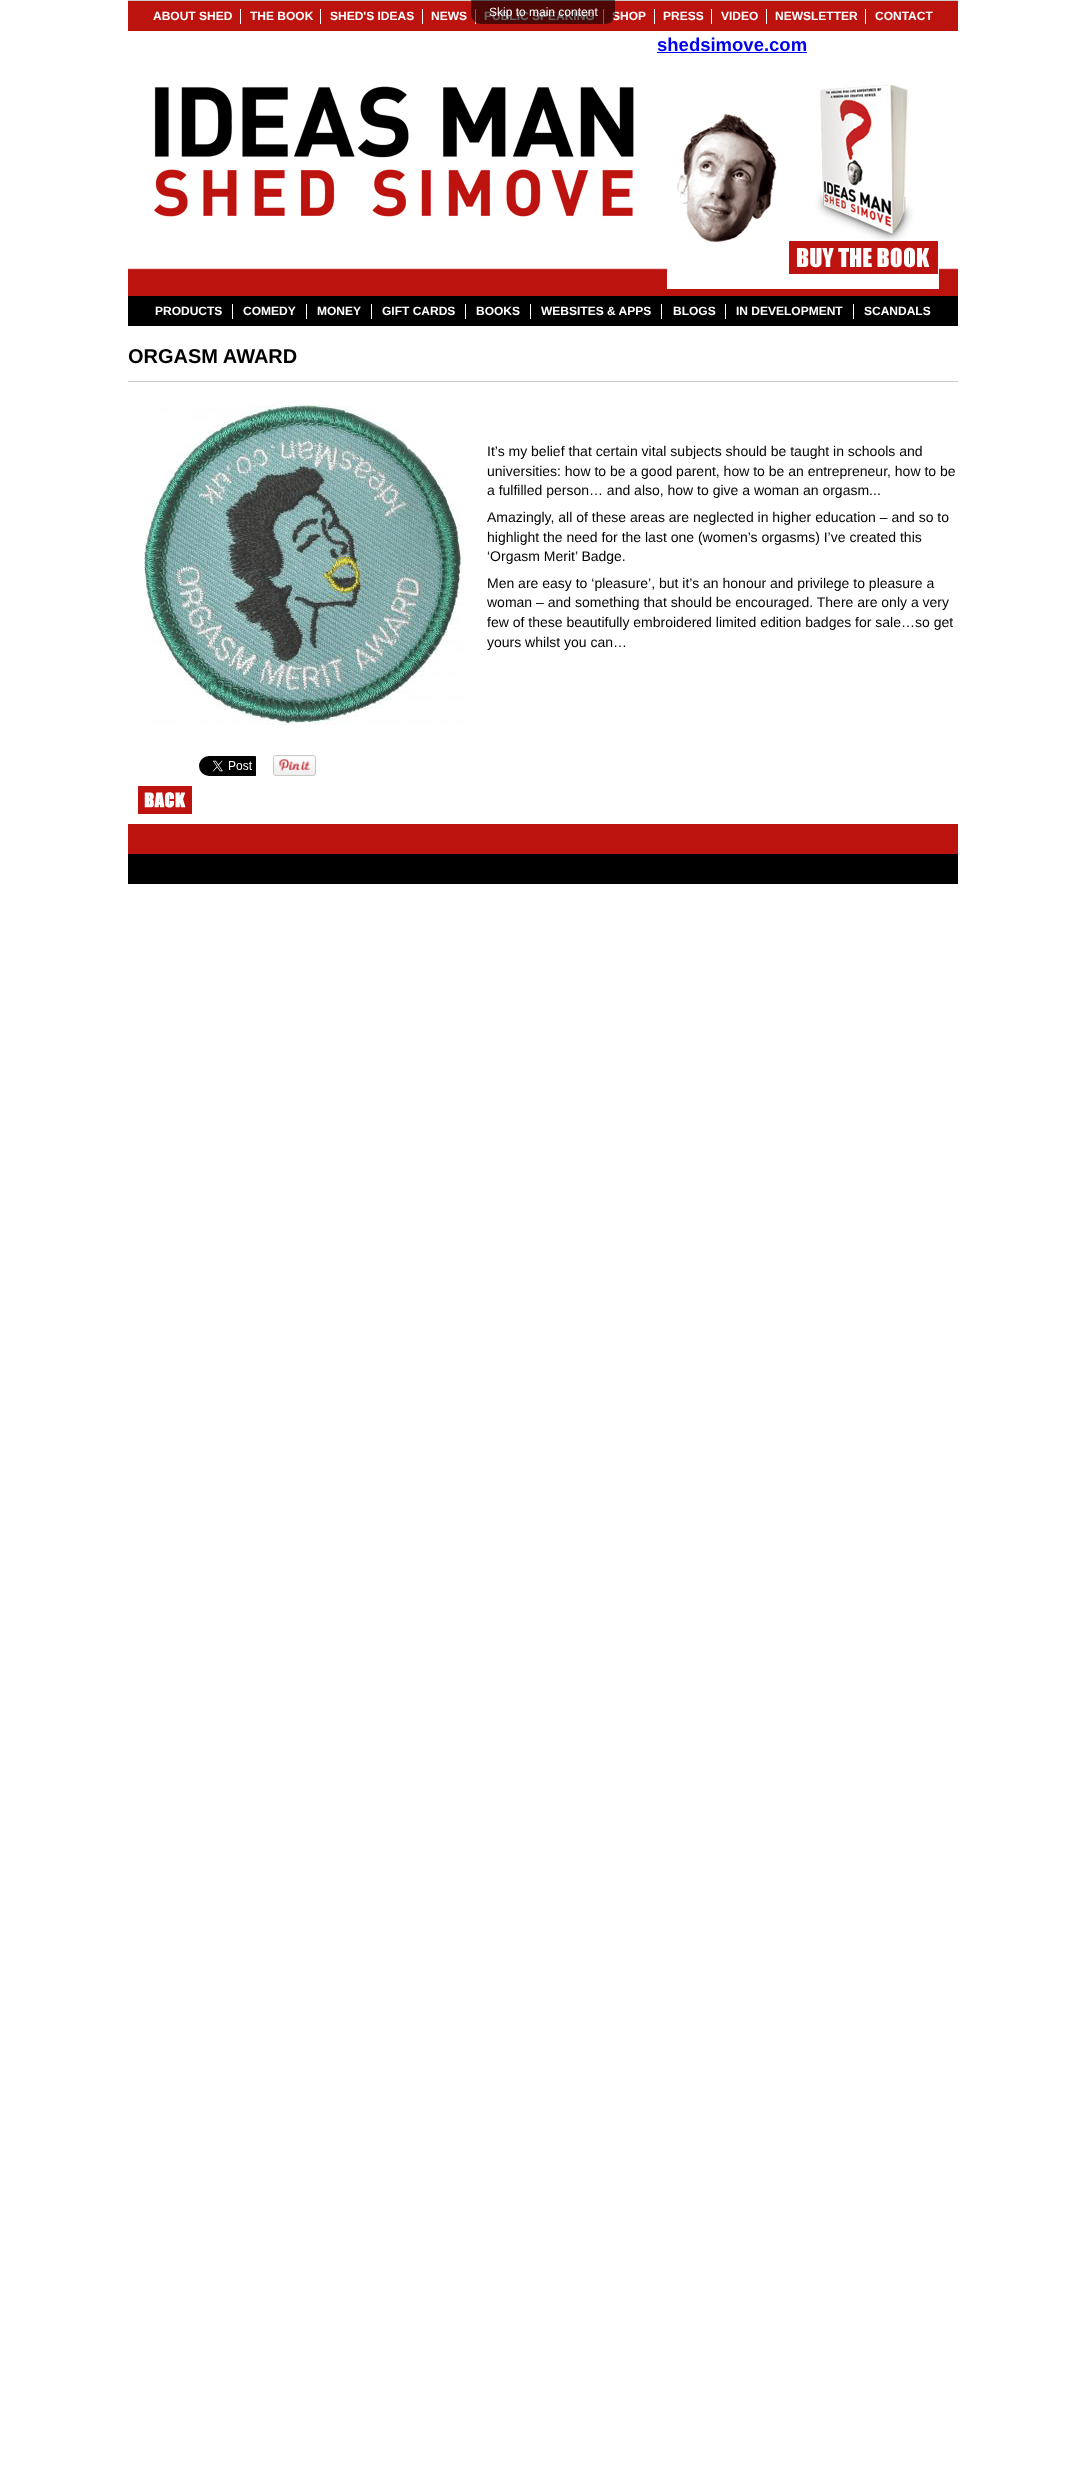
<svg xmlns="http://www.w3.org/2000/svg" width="1086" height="2492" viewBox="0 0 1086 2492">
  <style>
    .t1 { font: bold 12px Liberation Sans; fill: #fff; }
    .t2 { font: 12px Liberation Sans; fill: #fff; }
    .t3 { font: bold 18.5px Liberation Sans; fill: #00e; }
    .t4 { font: bold 20px Liberation Sans; fill: #000; }
    .t5 { font: 14px Liberation Sans; fill: #000; }
  </style>
  <rect width="100%" height="100%" fill="#fff"/>
  <rect x="128" y="1" width="830" height="30" fill="#bd130f"/>
  <rect x="128" y="0" width="830" height="1" fill="#ccc"/>
  <rect x="475" y="9" width="1" height="15" fill="#fff"/>
  <rect x="603" y="9" width="1" height="15" fill="#fff"/>
  <text x="484" y="20" class="t1">PUBLIC SPEAKING</text>
  <text x="612" y="20" class="t1">SHOP</text>
  <path d="M471 0H615V14C615 19.5 610.5 24 605 24H481C475.5 24 471 19.5 471 14Z" fill="#00000099"/>
  <text x="489" y="16" class="t2">Skip to main content</text>
  <rect x="240" y="9" width="1" height="15" fill="#fff"/>
  <text x="153" y="20" class="t1">ABOUT SHED</text>
  <rect x="320" y="9" width="1" height="15" fill="#fff"/>
  <text x="250" y="20" class="t1">THE BOOK</text>
  <rect x="422" y="9" width="1" height="15" fill="#fff"/>
  <text x="330" y="20" class="t1">SHED'S IDEAS</text>
  <text x="431" y="20" class="t1">NEWS</text>
  <rect x="654" y="9" width="1" height="15" fill="#fff"/>
  <rect x="711" y="9" width="1" height="15" fill="#fff"/>
  <text x="663" y="20" class="t1">PRESS</text>
  <rect x="766" y="9" width="1" height="15" fill="#fff"/>
  <text x="721" y="20" class="t1">VIDEO</text>
  <rect x="865" y="9" width="1" height="15" fill="#fff"/>
  <text x="775" y="20" class="t1">NEWSLETTER</text>
  <text x="875" y="20" class="t1">CONTACT</text>
  <image x="128" y="268" width="830" height="28" href="images/1.png"/>
  <text x="657" y="51" class="t3">shedsimove.com</text>
  <rect x="657" y="52" width="150" height="1" fill="#00e"/>
  <image x="154" y="86" width="480" height="136" href="images/2.png"/>
  <image x="667" y="84" width="272" height="205" href="images/3.png"/>
  <rect x="128" y="296" width="830" height="30" fill="#000"/>
  <rect x="232" y="304" width="1" height="15" fill="#fff"/>
  <text x="155" y="315" class="t1">PRODUCTS</text>
  <rect x="306" y="304" width="1" height="15" fill="#fff"/>
  <text x="243" y="315" class="t1">COMEDY</text>
  <rect x="371" y="304" width="1" height="15" fill="#fff"/>
  <text x="317" y="315" class="t1">MONEY</text>
  <rect x="465" y="304" width="1" height="15" fill="#fff"/>
  <text x="382" y="315" class="t1">GIFT CARDS</text>
  <rect x="530" y="304" width="1" height="15" fill="#fff"/>
  <text x="476" y="315" class="t1">BOOKS</text>
  <rect x="661" y="304" width="1" height="15" fill="#fff"/>
  <text x="541" y="315" class="t1">WEBSITES &amp; APPS</text>
  <rect x="725" y="304" width="1" height="15" fill="#fff"/>
  <text x="673" y="315" class="t1">BLOGS</text>
  <rect x="853" y="304" width="1" height="15" fill="#fff"/>
  <text x="736" y="315" class="t1">IN DEVELOPMENT</text>
  <text x="864" y="315" class="t1">SCANDALS</text>
  <rect x="128" y="381" width="830" height="1" fill="#ccc"/>
  <text x="128" y="363" class="t4">ORGASM AWARD</text>
  <image x="144" y="405" width="320" height="320" href="images/4.png"/>
  <text x="487" y="456" class="t5">It’s my belief that certain vital subjects should be taught in schools and</text>
  <text x="487" y="476" class="t5">universities: how to be a good parent, how to be an entrepreneur, how to be</text>
  <text x="487" y="495" class="t5">a fulfilled person… and also, how to give a woman an orgasm...</text>
  <text x="487" y="522" class="t5">Amazingly, all of these areas are neglected in higher education – and so to</text>
  <text x="487" y="542" class="t5">highlight the need for the last one (women’s orgasms) I’ve created this</text>
  <text x="487" y="561" class="t5">‘Orgasm Merit’ Badge.</text>
  <text x="487" y="588" class="t5">Men are easy to ‘pleasure’, but it’s an honour and privilege to pleasure a</text>
  <text x="487" y="607" class="t5">woman – and something that should be encouraged. There are only a very</text>
  <text x="487" y="627" class="t5">few of these beautifully embroidered limited edition badges for sale…so get</text>
  <text x="487" y="647" class="t5">yours whilst you can…</text>
  <image x="199" y="756" width="57" height="20" href="images/5.png"/>
  <image x="273" y="755" width="43" height="21" href="images/6.png"/>
  <image x="138" y="786" width="54" height="28" href="images/7.png"/>
  <image x="128" y="824" width="830" height="60" href="images/8.png"/>
</svg>
